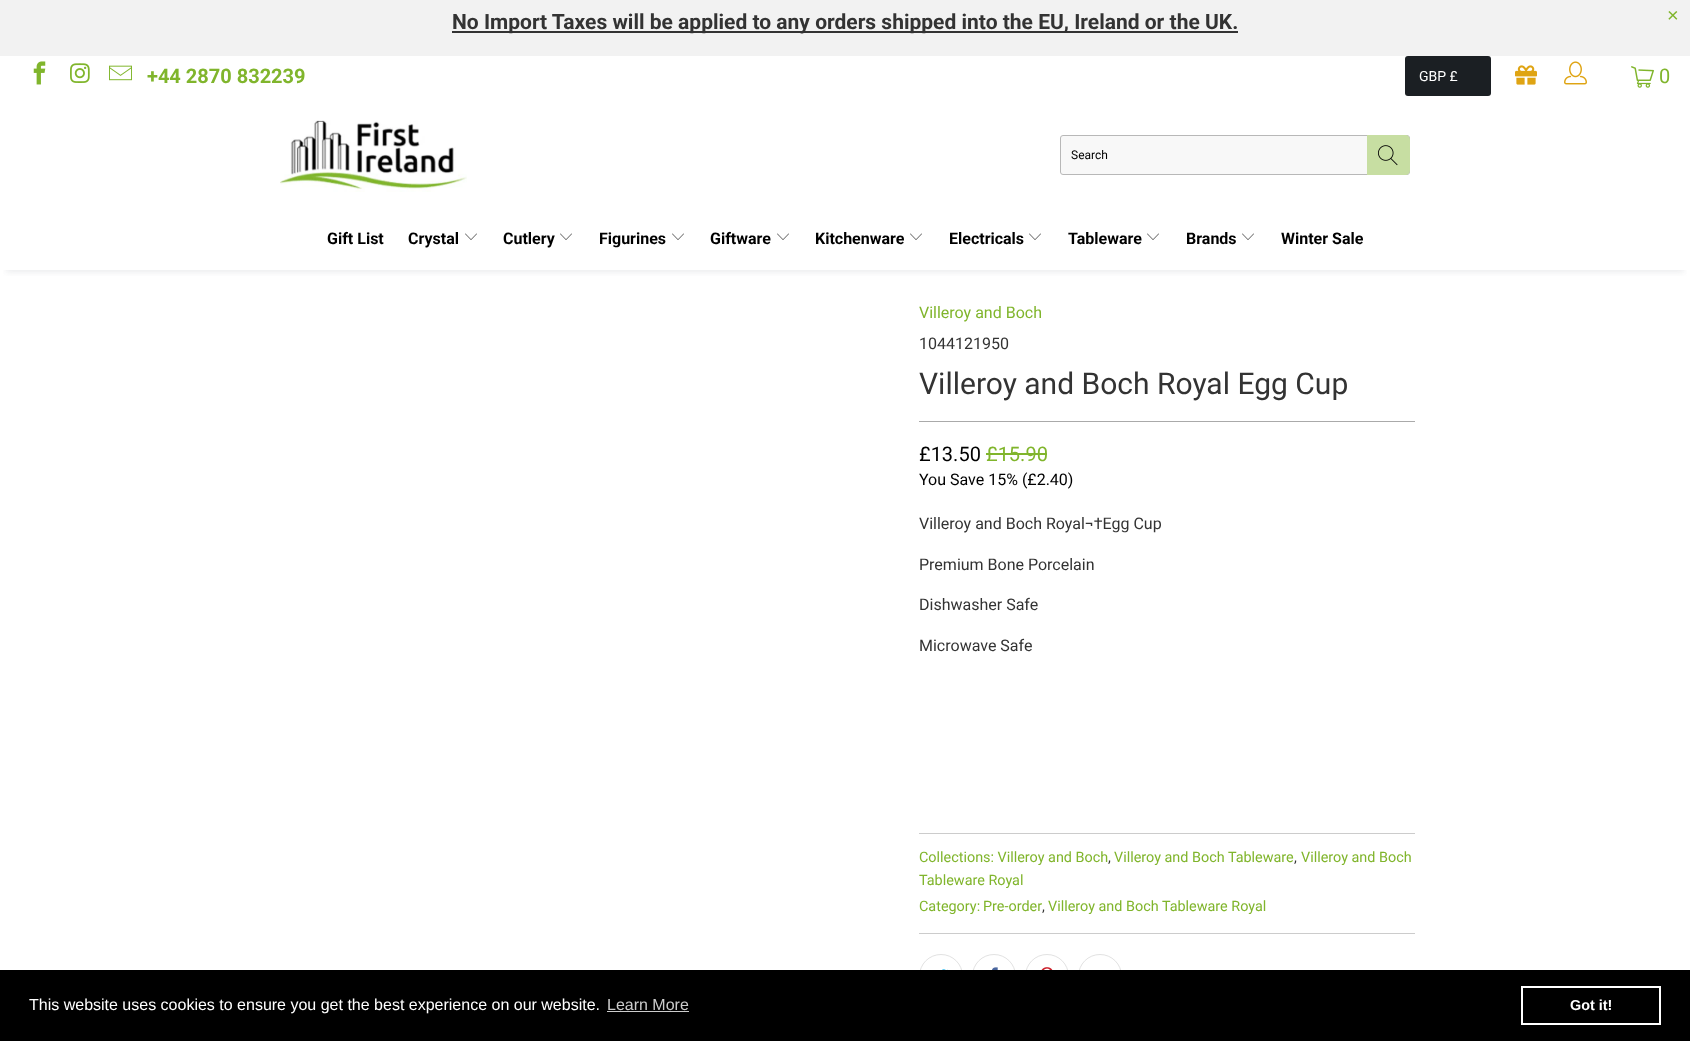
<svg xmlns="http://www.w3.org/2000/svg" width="1690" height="1041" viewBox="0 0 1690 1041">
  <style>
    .t1 { font: bold 21px Roboto; fill: #333; }
    .t2 { font: 20px Liberation Sans; fill: #80b52c; }
    .t3 { font: bold 20px Roboto; fill: #80b52c; }
    .t4 { font: 14px Roboto; fill: #fff; }
    .t5 { font: 20px Roboto; fill: #80b52c; }
    .t6 { font: 12px Roboto; fill: #000; }
    .t7 { font: bold 16px Roboto; fill: #000; }
    .t8 { font: 16px Roboto; fill: #80b52c; }
    .t9 { font: 16px Roboto; fill: #333; }
    .t10 { font: 30px Roboto; fill: #333; }
    .t11 { font: 20px Roboto; fill: #000; }
    .t12 { font: 16px Roboto; fill: #000; }
    .t13 { font: 14.4px Roboto; fill: #80b52c; }
    .t14 { font: 14.4px Roboto; fill: #333; }
    .t15 { font: 16px Liberation Sans; fill: #fff; }
    .t16 { font: 16px Liberation Sans; fill: #ccc; }
    .t17 { font: bold 14.4px Liberation Sans; fill: #fff; }
  </style>
  <defs>
    <clipPath id="clip1"><rect x="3" y="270" width="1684" height="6"/></clipPath>
  </defs>
  <rect width="100%" height="100%" fill="#fff"/>
  <rect x="0" y="0" width="1690" height="56" fill="#f2f2f2"/>
  <rect x="452" y="31" width="786" height="2" fill="#333"/>
  <text x="452" y="29" class="t1">No Import Taxes will be applied to any orders shipped into the EU, Ireland or the UK.</text>
  <text x="1667" y="22" class="t2">×</text>
  <image x="33" y="61" width="13" height="24" href="images/1.png"/>
  <image x="70" y="63" width="20" height="20" href="images/2.png"/>
  <image x="109" y="65" width="23" height="16" href="images/3.png"/>
  <text x="147" y="83" class="t3">+44 2870 832239</text>
  <rect x="1405" y="56" width="86" height="40" rx="3" fill="#1b1f23"/>
  <text x="1419" y="81" class="t4">GBP £</text>
  <image x="1515" y="65" width="22" height="20" href="images/4.png"/>
  <image x="1564" y="61" width="23" height="24" href="images/5.png"/>
  <image x="1631" y="66" width="23" height="22" href="images/6.png"/>
  <text x="1659" y="83" class="t5">0</text>
  <image x="280" y="120" width="187" height="72" href="images/7.png"/>
  <rect x="1060.5" y="135.5" width="349" height="39" rx="2.5" fill="#f8f8f8" stroke="#b8b8b8"/>
  <text x="1071" y="159" class="t6">Search</text>
  <path d="M1367 135H1405C1408 135 1410 137 1410 140V170C1410 173 1408 175 1405 175H1367Z" fill="#c7dea2"/>
  <image x="1378" y="145" width="20" height="21" href="images/8.png"/>
  <g clip-path="url(#clip1)">
    <rect x="6" y="228" width="1678" height="44" fill="#959da533" filter="blur(3px)"/>
  </g>
  <text x="327" y="244" class="t7">Gift List</text>
  <text x="408" y="244" class="t7">Crystal</text>
  <image x="465" y="233" width="12" height="7" href="images/9.png"/>
  <text x="503" y="244" class="t7">Cutlery</text>
  <image x="560" y="233" width="12" height="7" href="images/9.png"/>
  <text x="599" y="244" class="t7">Figurines</text>
  <image x="672" y="233" width="12" height="7" href="images/9.png"/>
  <text x="710" y="244" class="t7">Giftware</text>
  <image x="777" y="233" width="12" height="7" href="images/9.png"/>
  <text x="815" y="244" class="t7">Kitchenware</text>
  <image x="910" y="233" width="12" height="7" href="images/9.png"/>
  <text x="949" y="244" class="t7">Electricals</text>
  <image x="1029" y="233" width="12" height="7" href="images/9.png"/>
  <text x="1068" y="244" class="t7">Tableware</text>
  <image x="1147" y="233" width="12" height="7" href="images/9.png"/>
  <text x="1186" y="244" class="t7">Brands</text>
  <image x="1242" y="233" width="12" height="7" href="images/9.png"/>
  <text x="1281" y="244" class="t7">Winter Sale</text>
  <text x="919" y="318" class="t8">Villeroy and Boch</text>
  <text x="919" y="349" class="t9">1044121950</text>
  <text x="919" y="394" class="t10">Villeroy and Boch Royal Egg Cup</text>
  <rect x="919" y="421" width="496" height="1" fill="#aaa"/>
  <text x="919" y="461" class="t11">£13.50</text>
  <text x="986" y="461" class="t5">£15.90</text>
  <rect x="986" y="453" width="61" height="2" fill="#80b52c"/>
  <text x="919" y="485" class="t12">You Save 15% (£2.40)</text>
  <text x="919" y="529" class="t9">Villeroy and Boch Royal¬†Egg Cup</text>
  <text x="919" y="570" class="t9">Premium Bone Porcelain</text>
  <text x="919" y="610" class="t9">Dishwasher Safe</text>
  <text x="919" y="651" class="t9">Microwave Safe</text>
  <rect x="919" y="833" width="496" height="1" fill="#ccc"/>
  <text x="919" y="862" class="t13">Collections: Villeroy and Boch</text>
  <text x="1108" y="862" class="t14">,</text>
  <text x="1114" y="862" class="t13">Villeroy and Boch Tableware</text>
  <text x="1294" y="862" class="t14">,</text>
  <text x="1301" y="862" class="t13">Villeroy and Boch</text>
  <text x="919" y="885" class="t13">Tableware Royal</text>
  <text x="919" y="911" class="t13">Category:</text>
  <text x="1042" y="911" class="t14">,</text>
  <text x="983" y="911" class="t13">Pre-order</text>
  <text x="1048" y="911" class="t13">Villeroy and Boch Tableware Royal</text>
  <rect x="919" y="933" width="496" height="1" fill="#ccc"/>
  <circle cx="941" cy="976" r="21.5" fill="none" stroke="#e2e2e2"/>
  <image x="942" y="969" width="6" height="1" href="images/10.png"/>
  <circle cx="994" cy="976" r="21.5" fill="none" stroke="#e2e2e2"/>
  <image x="992" y="967" width="6" height="3" href="images/11.png"/>
  <circle cx="1047" cy="976" r="21.5" fill="none" stroke="#e2e2e2"/>
  <image x="1041" y="967" width="12" height="3" href="images/12.png"/>
  <circle cx="1100" cy="976" r="21.5" fill="none" stroke="#e2e2e2"/>
  <rect x="0" y="970" width="1690" height="71" fill="#000"/>
  <text x="29" y="1010" class="t15">This website uses cookies to ensure you get the best experience on our website.</text>
  <text x="607" y="1010" class="t16">Learn More</text>
  <rect x="607" y="1011" width="82" height="1" fill="#ccc"/>
  <rect x="1522" y="987" width="138" height="37" fill="none" stroke="#fff" stroke-width="2"/>
  <text x="1570" y="1010" class="t17">Got it!</text>
</svg>
